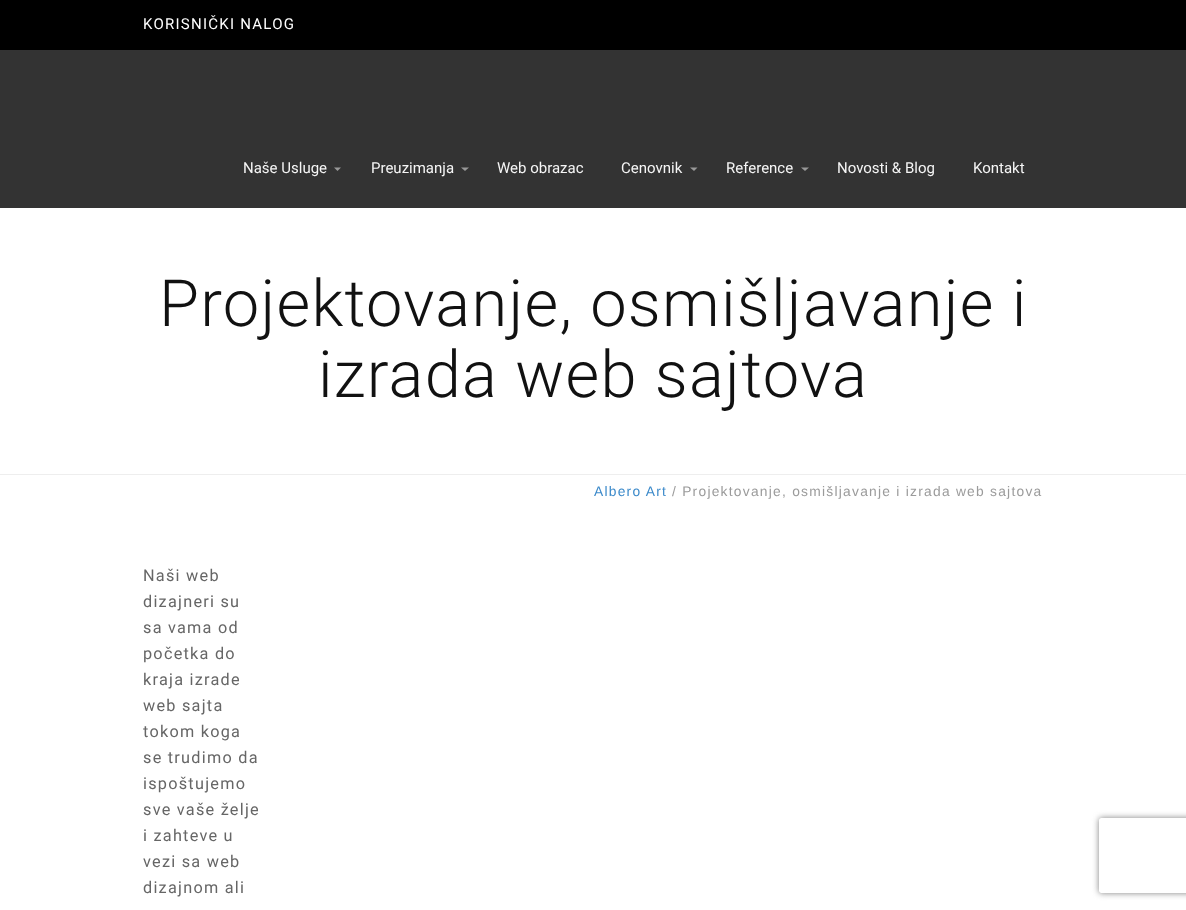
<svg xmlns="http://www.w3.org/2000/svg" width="1186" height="910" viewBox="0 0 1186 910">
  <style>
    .t1 { font: 15px Roboto; letter-spacing: 1.25px; fill: #fff; }
    .t2 { font: 15px Roboto; fill: #f5f5f5; }
    .t3 { font: 300 65px Roboto; letter-spacing: 1.25px; fill: #111; }
    .t4 { font: 13.8px Liberation Sans; letter-spacing: 1.25px; fill: #3c8aca; }
    .t5 { font: 13.8px Liberation Sans; letter-spacing: 1.25px; fill: #9b9b9b; }
    .t6 { font: 16.25px Roboto; letter-spacing: 1.25px; fill: #666; }
  </style>
  <defs>
    <clipPath id="clip1"><path d="M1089 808H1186V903H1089ZM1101.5 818H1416.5C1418 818 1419 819 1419 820.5V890.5C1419 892 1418 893 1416.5 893H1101.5C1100 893 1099 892 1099 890.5V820.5C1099 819 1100 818 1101.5 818Z" clip-rule="evenodd"/></clipPath>
  </defs>
  <rect width="100%" height="100%" fill="#fff"/>
  <rect x="0" y="0" width="1186" height="50" fill="#000"/>
  <text x="143" y="29" class="t1">KORISNIČKI NALOG</text>
  <rect x="0" y="50" width="1186" height="158" fill="#333"/>
  <text x="243" y="173" class="t2">Naše Usluge</text>
  <path d="M334 167.5H341L337.5 171Z" fill="#999"/>
  <text x="371" y="173" class="t2">Preuzimanja</text>
  <path d="M461 167.5H469L465 171Z" fill="#999"/>
  <text x="497" y="173" class="t2">Web obrazac</text>
  <text x="621" y="173" class="t2">Cenovnik</text>
  <path d="M690 167.5H697.5L694 171Z" fill="#999"/>
  <text x="726" y="173" class="t2">Reference</text>
  <path d="M801 167.5H809L805 171Z" fill="#999"/>
  <text x="837" y="173" class="t2">Novosti &amp; Blog</text>
  <text x="973" y="173" class="t2">Kontakt</text>
  <rect x="0" y="474" width="1186" height="1" fill="#eee"/>
  <text x="159" y="326" class="t3">Projektovanje, osmišljavanje i</text>
  <text x="318" y="397" class="t3">izrada web sajtova</text>
  <text x="594" y="496" class="t4">Albero Art</text>
  <text x="672" y="496" class="t5">/ Projektovanje, osmišljavanje i izrada web sajtova</text>
  <text x="143" y="581" class="t6">Naši web</text>
  <text x="143" y="607" class="t6">dizajneri su</text>
  <text x="143" y="633" class="t6">sa vama od</text>
  <text x="143" y="659" class="t6">početka do</text>
  <text x="143" y="685" class="t6">kraja izrade</text>
  <text x="143" y="711" class="t6">web sajta</text>
  <text x="143" y="737" class="t6">tokom koga</text>
  <text x="143" y="763" class="t6">se trudimo da</text>
  <text x="143" y="789" class="t6">ispoštujemo</text>
  <text x="143" y="815" class="t6">sve vaše želje</text>
  <text x="143" y="841" class="t6">i zahteve u</text>
  <text x="143" y="867" class="t6">vezi sa web</text>
  <text x="143" y="893" class="t6">dizajnom ali</text>
  <g clip-path="url(#clip1)">
    <rect x="1099" y="818" width="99" height="75" rx="2.5" fill="#808080" filter="blur(3px)"/>
  </g>
</svg>
